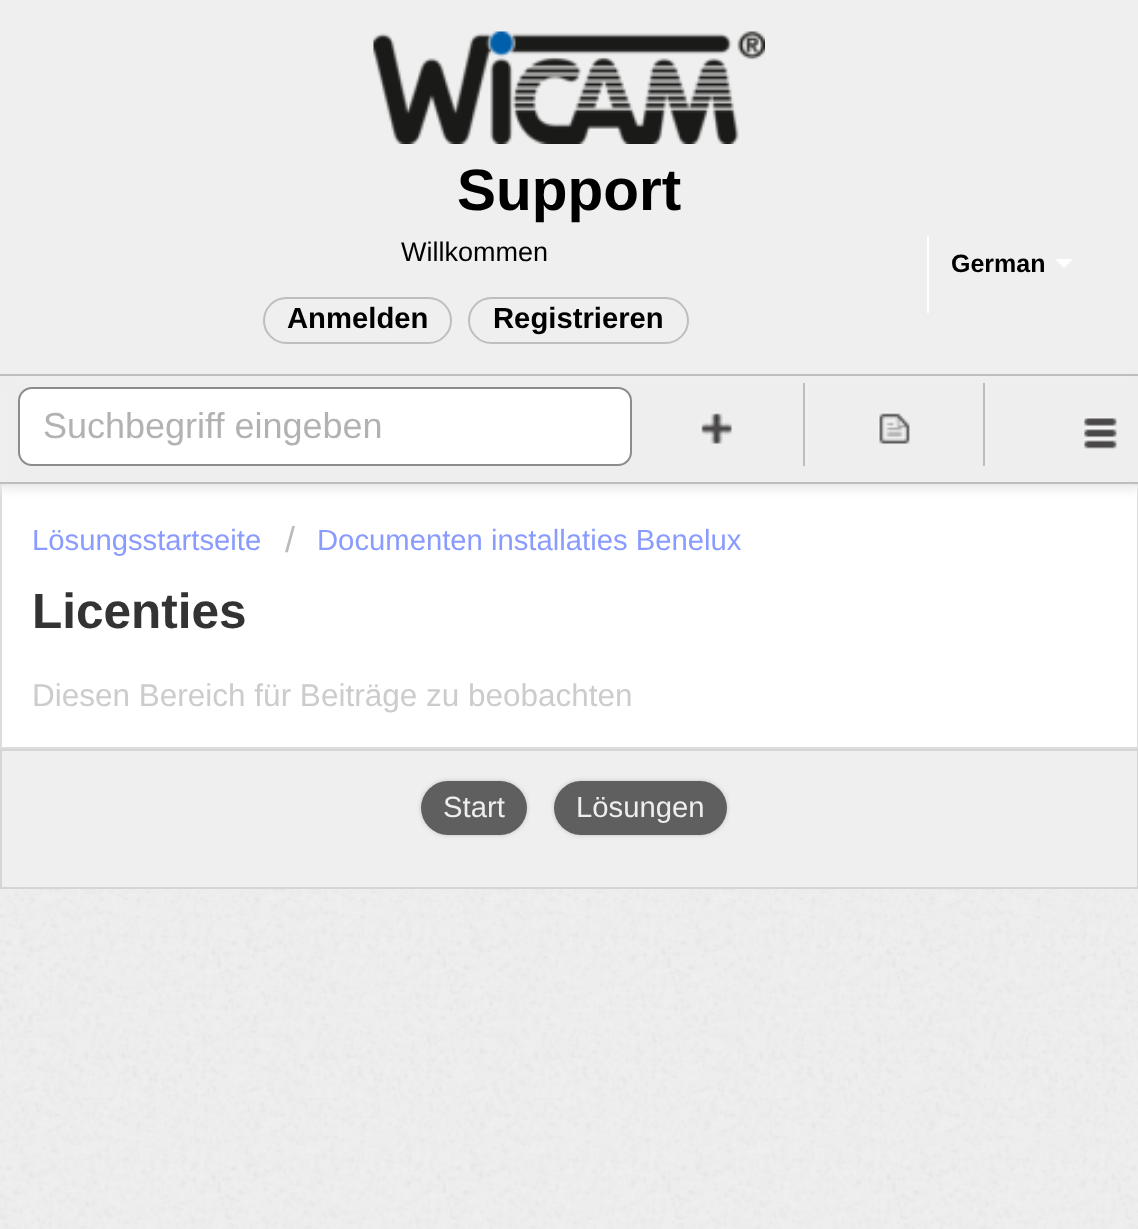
<svg xmlns="http://www.w3.org/2000/svg" width="1138" height="1229" viewBox="0 0 1138 1229">
  <style>
    .t1 { font: bold 58.5px Liberation Sans; fill: #000; }
    .t2 { font: 27px Liberation Sans; fill: #000; }
    .t3 { font: bold 25px Liberation Sans; fill: #000; }
    .t4 { font: bold 29.25px Liberation Sans; fill: #000; }
    .t5 { font: 36px Liberation Sans; fill: #b2b2b2; }
    .t6 { font: 29.25px Liberation Sans; fill: #8a9bff; }
    .t7 { font: 36px Liberation Sans; fill: #bbb; }
    .t8 { font: bold 49.5px Liberation Sans; fill: #333; }
    .t9 { font: 31.5px Liberation Sans; fill: #ccc; }
    .t10 { font: 29.25px Liberation Sans; fill: #eee; }
  </style>
  <rect width="100%" height="100%" fill="#efefef"/>
  <image x="0" y="889" width="1138" height="340" href="images/1.png"/>
  <image x="373" y="31" width="392" height="113" href="images/2.png"/>
  <text x="457" y="210" class="t1">Support</text>
  <text x="401" y="261" class="t2">Willkommen</text>
  <rect x="927" y="236" width="2" height="77" fill="#fff"/>
  <text x="951" y="272" class="t3">German</text>
  <path d="M1055 259H1073L1064 268Z" fill="#fff"/>
  <rect x="264" y="298" width="187" height="45" rx="22.5" fill="none" stroke="#bebebe" stroke-width="2"/>
  <text x="287" y="328" class="t4">Anmelden</text>
  <rect x="469" y="298" width="219" height="45" rx="22.5" fill="none" stroke="#bebebe" stroke-width="2"/>
  <text x="493" y="328" class="t4">Registrieren</text>
  <rect x="1" y="485" width="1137" height="263" fill="#fff" stroke="#dcdcdc" stroke-width="2"/>
  <rect x="0" y="380" width="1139" height="111" fill="#eee" filter="blur(4.5px)"/>
  <rect x="0" y="374" width="1138" height="2" fill="#bebebe"/>
  <rect x="0" y="482" width="1138" height="2" fill="#bebebe"/>
  <image x="1083" y="417" width="34" height="32" href="images/3.png"/>
  <rect x="19" y="388" width="612" height="77" rx="13" fill="#fff" stroke="#8c8c8c" stroke-width="2"/>
  <text x="43" y="438" class="t5">Suchbegriff eingeben</text>
  <path d="M630 466H808V383H806V466Z" fill="#f1f1f1"/>
  <rect x="803" y="383" width="2" height="83" fill="#bebebe"/>
  <image x="700" y="412" width="32" height="32" href="images/4.png"/>
  <path d="M808 466H988V383H986V466Z" fill="#f1f1f1"/>
  <rect x="983" y="383" width="2" height="83" fill="#bebebe"/>
  <image x="878" y="412" width="32" height="32" href="images/5.png"/>
  <text x="32" y="550" class="t6">Lösungsstartseite</text>
  <text x="285" y="552" class="t7">/</text>
  <text x="317" y="550" class="t6">Documenten installaties Benelux</text>
  <text x="32" y="628" class="t8">Licenties</text>
  <text x="32" y="706" class="t9">Diesen Bereich für Beiträge zu beobachten</text>
  <rect x="1" y="750" width="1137" height="138" fill="none" stroke="#d5d5d5" stroke-width="2"/>
  <rect x="421" y="781" width="106" height="54" rx="27" fill="#c0c0c0" filter="blur(2px)"/>
  <rect x="421" y="781" width="106" height="54" rx="27" fill="#5f5f5f"/>
  <text x="443" y="817" class="t10">Start</text>
  <rect x="554" y="781" width="173" height="54" rx="27" fill="#c0c0c0" filter="blur(2px)"/>
  <rect x="554" y="781" width="173" height="54" rx="27" fill="#5f5f5f"/>
  <text x="576" y="817" class="t10">Lösungen</text>
</svg>
